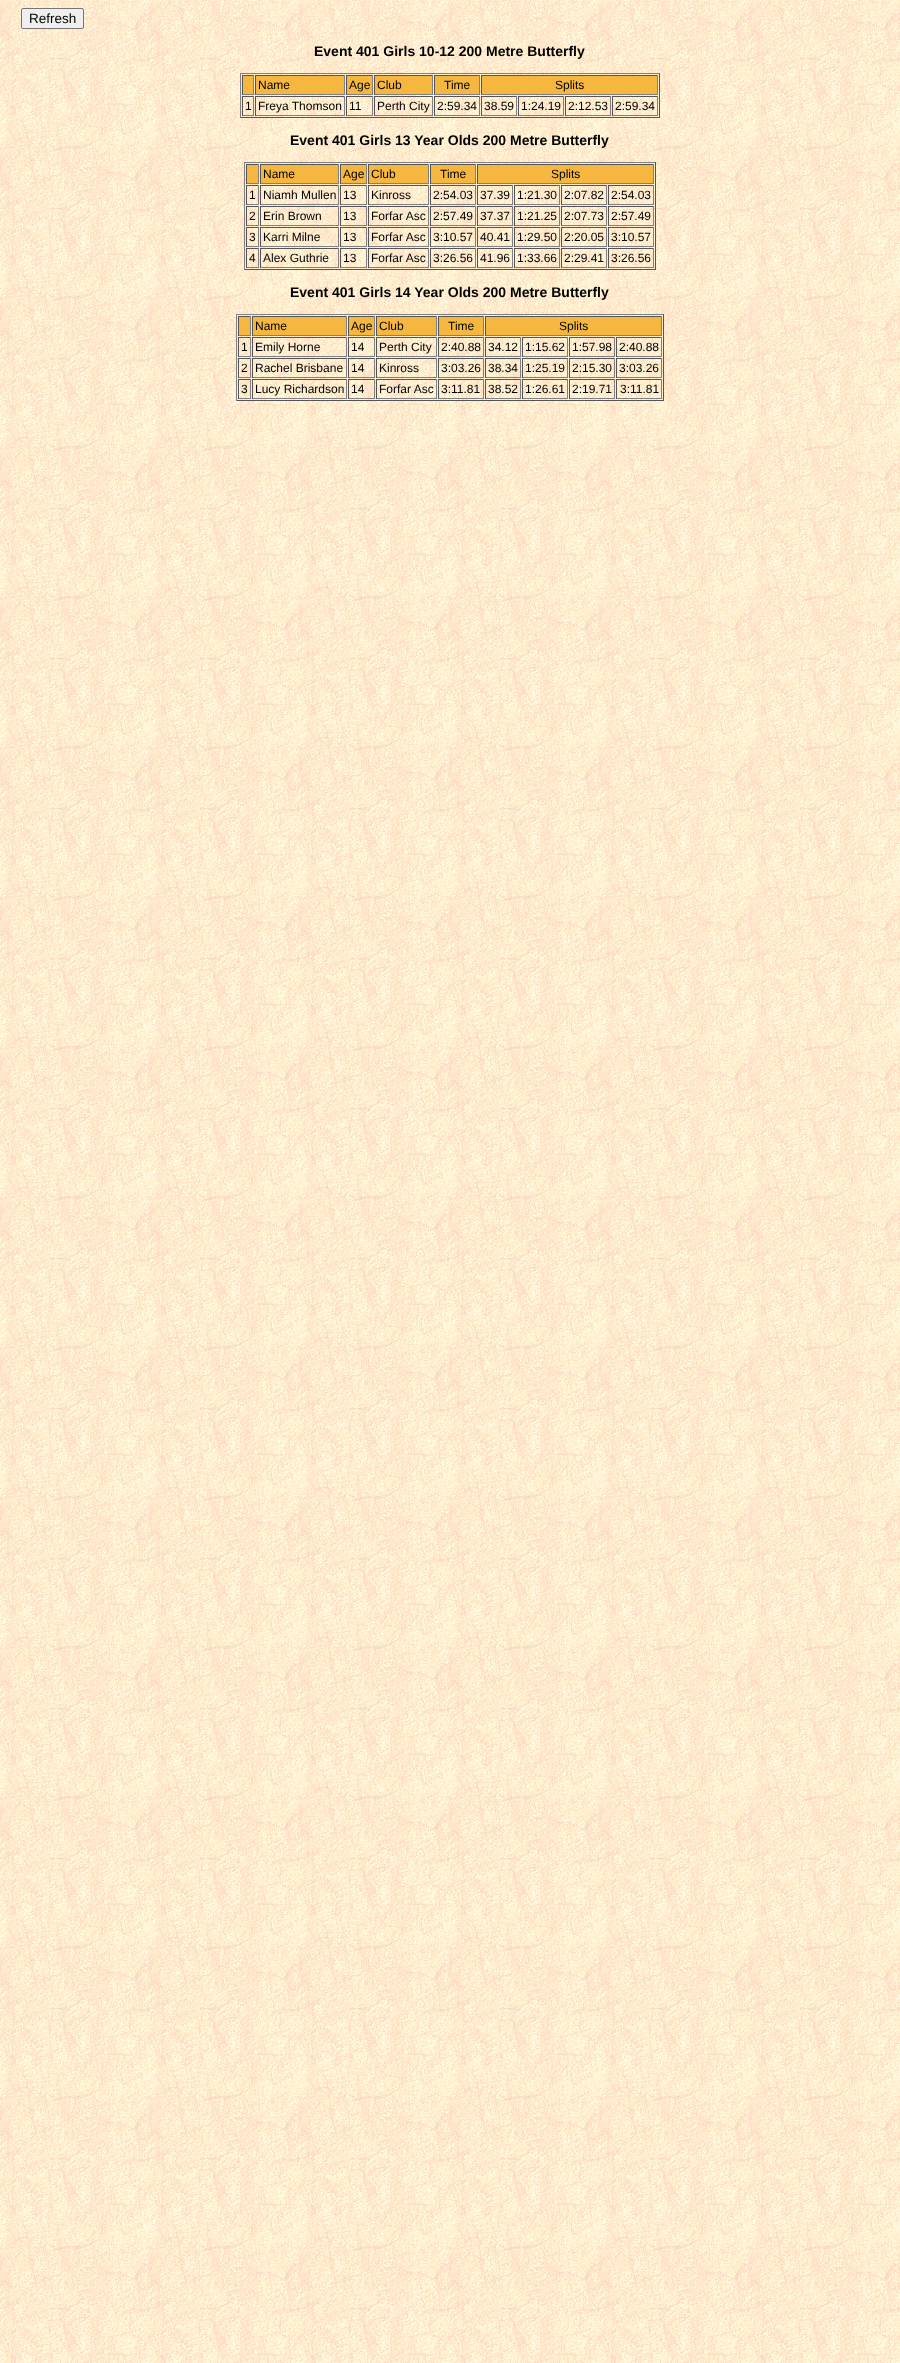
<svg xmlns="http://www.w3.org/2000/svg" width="900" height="2363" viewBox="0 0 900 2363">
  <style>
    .t1 { font: 13.5px Liberation Sans; fill: #000; }
    .t2 { font: bold 14px Liberation Sans; fill: #000; }
    .t3 { font: 12px Liberation Sans; fill: #000; }
  </style>
  <rect width="100%" height="100%" fill="#fff"/>
  <image x="0" y="0" width="900" height="2363" href="images/1.png"/>
  <rect x="21.5" y="8.5" width="62" height="20" rx="1.5" fill="#efefef" stroke="#767676"/>
  <text x="29" y="23" class="t1">Refresh</text>
  <text x="314" y="56" class="t2">Event 401 Girls 10-12 200 Metre Butterfly</text>
  <rect x="240" y="73" width="420" height="1" fill="#808080"/>
  <rect x="659" y="73" width="1" height="45" fill="#555"/>
  <rect x="240" y="117" width="420" height="1" fill="#555"/>
  <rect x="240" y="73" width="1" height="45" fill="#808080"/>
  <rect x="243" y="76" width="10" height="18" fill="#f5b73f"/>
  <rect x="242" y="75" width="12" height="1" fill="#555"/>
  <rect x="253" y="75" width="1" height="20" fill="#808080"/>
  <rect x="242" y="94" width="12" height="1" fill="#808080"/>
  <rect x="242" y="75" width="1" height="20" fill="#555"/>
  <rect x="256" y="76" width="88" height="18" fill="#f5b73f"/>
  <rect x="255" y="75" width="90" height="1" fill="#555"/>
  <rect x="344" y="75" width="1" height="20" fill="#808080"/>
  <rect x="255" y="94" width="90" height="1" fill="#808080"/>
  <rect x="255" y="75" width="1" height="20" fill="#555"/>
  <text x="258" y="89" class="t3">Name</text>
  <rect x="347" y="76" width="25" height="18" fill="#f5b73f"/>
  <rect x="346" y="75" width="27" height="1" fill="#555"/>
  <rect x="372" y="75" width="1" height="20" fill="#808080"/>
  <rect x="346" y="94" width="27" height="1" fill="#808080"/>
  <rect x="346" y="75" width="1" height="20" fill="#555"/>
  <text x="349" y="89" class="t3">Age</text>
  <rect x="375" y="76" width="57" height="18" fill="#f5b73f"/>
  <rect x="374" y="75" width="59" height="1" fill="#555"/>
  <rect x="432" y="75" width="1" height="20" fill="#808080"/>
  <rect x="374" y="94" width="59" height="1" fill="#808080"/>
  <rect x="374" y="75" width="1" height="20" fill="#555"/>
  <text x="377" y="89" class="t3">Club</text>
  <rect x="435" y="76" width="44" height="18" fill="#f5b73f"/>
  <rect x="434" y="75" width="46" height="1" fill="#555"/>
  <rect x="479" y="75" width="1" height="20" fill="#808080"/>
  <rect x="434" y="94" width="46" height="1" fill="#808080"/>
  <rect x="434" y="75" width="1" height="20" fill="#555"/>
  <text x="444" y="89" class="t3">Time</text>
  <rect x="482" y="76" width="175" height="18" fill="#f5b73f"/>
  <rect x="481" y="75" width="177" height="1" fill="#555"/>
  <rect x="657" y="75" width="1" height="20" fill="#808080"/>
  <rect x="481" y="94" width="177" height="1" fill="#808080"/>
  <rect x="481" y="75" width="1" height="20" fill="#555"/>
  <text x="555" y="89" class="t3">Splits</text>
  <rect x="242" y="96" width="12" height="1" fill="#555"/>
  <rect x="253" y="96" width="1" height="20" fill="#808080"/>
  <rect x="242" y="115" width="12" height="1" fill="#808080"/>
  <rect x="242" y="96" width="1" height="20" fill="#555"/>
  <text x="245" y="110" class="t3">1</text>
  <rect x="255" y="96" width="90" height="1" fill="#555"/>
  <rect x="344" y="96" width="1" height="20" fill="#808080"/>
  <rect x="255" y="115" width="90" height="1" fill="#808080"/>
  <rect x="255" y="96" width="1" height="20" fill="#555"/>
  <text x="258" y="110" class="t3">Freya Thomson</text>
  <rect x="346" y="96" width="27" height="1" fill="#555"/>
  <rect x="372" y="96" width="1" height="20" fill="#808080"/>
  <rect x="346" y="115" width="27" height="1" fill="#808080"/>
  <rect x="346" y="96" width="1" height="20" fill="#555"/>
  <text x="349" y="110" class="t3">11</text>
  <rect x="374" y="96" width="59" height="1" fill="#555"/>
  <rect x="432" y="96" width="1" height="20" fill="#808080"/>
  <rect x="374" y="115" width="59" height="1" fill="#808080"/>
  <rect x="374" y="96" width="1" height="20" fill="#555"/>
  <text x="377" y="110" class="t3">Perth City</text>
  <rect x="434" y="96" width="46" height="1" fill="#555"/>
  <rect x="479" y="96" width="1" height="20" fill="#808080"/>
  <rect x="434" y="115" width="46" height="1" fill="#808080"/>
  <rect x="434" y="96" width="1" height="20" fill="#555"/>
  <text x="437" y="110" class="t3">2:59.34</text>
  <rect x="481" y="96" width="36" height="1" fill="#555"/>
  <rect x="516" y="96" width="1" height="20" fill="#808080"/>
  <rect x="481" y="115" width="36" height="1" fill="#808080"/>
  <rect x="481" y="96" width="1" height="20" fill="#555"/>
  <text x="484" y="110" class="t3">38.59</text>
  <rect x="518" y="96" width="46" height="1" fill="#555"/>
  <rect x="563" y="96" width="1" height="20" fill="#808080"/>
  <rect x="518" y="115" width="46" height="1" fill="#808080"/>
  <rect x="518" y="96" width="1" height="20" fill="#555"/>
  <text x="521" y="110" class="t3">1:24.19</text>
  <rect x="565" y="96" width="46" height="1" fill="#555"/>
  <rect x="610" y="96" width="1" height="20" fill="#808080"/>
  <rect x="565" y="115" width="46" height="1" fill="#808080"/>
  <rect x="565" y="96" width="1" height="20" fill="#555"/>
  <text x="568" y="110" class="t3">2:12.53</text>
  <rect x="612" y="96" width="46" height="1" fill="#555"/>
  <rect x="657" y="96" width="1" height="20" fill="#808080"/>
  <rect x="612" y="115" width="46" height="1" fill="#808080"/>
  <rect x="612" y="96" width="1" height="20" fill="#555"/>
  <text x="615" y="110" class="t3">2:59.34</text>
  <text x="290" y="145" class="t2">Event 401 Girls 13 Year Olds 200 Metre Butterfly</text>
  <rect x="244" y="162" width="412" height="1" fill="#808080"/>
  <rect x="655" y="162" width="1" height="108" fill="#555"/>
  <rect x="244" y="269" width="412" height="1" fill="#555"/>
  <rect x="244" y="162" width="1" height="108" fill="#808080"/>
  <rect x="247" y="165" width="11" height="18" fill="#f5b73f"/>
  <rect x="246" y="164" width="13" height="1" fill="#555"/>
  <rect x="258" y="164" width="1" height="20" fill="#808080"/>
  <rect x="246" y="183" width="13" height="1" fill="#808080"/>
  <rect x="246" y="164" width="1" height="20" fill="#555"/>
  <rect x="261" y="165" width="77" height="18" fill="#f5b73f"/>
  <rect x="260" y="164" width="79" height="1" fill="#555"/>
  <rect x="338" y="164" width="1" height="20" fill="#808080"/>
  <rect x="260" y="183" width="79" height="1" fill="#808080"/>
  <rect x="260" y="164" width="1" height="20" fill="#555"/>
  <text x="263" y="178" class="t3">Name</text>
  <rect x="341" y="165" width="25" height="18" fill="#f5b73f"/>
  <rect x="340" y="164" width="27" height="1" fill="#555"/>
  <rect x="366" y="164" width="1" height="20" fill="#808080"/>
  <rect x="340" y="183" width="27" height="1" fill="#808080"/>
  <rect x="340" y="164" width="1" height="20" fill="#555"/>
  <text x="343" y="178" class="t3">Age</text>
  <rect x="369" y="165" width="59" height="18" fill="#f5b73f"/>
  <rect x="368" y="164" width="61" height="1" fill="#555"/>
  <rect x="428" y="164" width="1" height="20" fill="#808080"/>
  <rect x="368" y="183" width="61" height="1" fill="#808080"/>
  <rect x="368" y="164" width="1" height="20" fill="#555"/>
  <text x="371" y="178" class="t3">Club</text>
  <rect x="431" y="165" width="44" height="18" fill="#f5b73f"/>
  <rect x="430" y="164" width="46" height="1" fill="#555"/>
  <rect x="475" y="164" width="1" height="20" fill="#808080"/>
  <rect x="430" y="183" width="46" height="1" fill="#808080"/>
  <rect x="430" y="164" width="1" height="20" fill="#555"/>
  <text x="440" y="178" class="t3">Time</text>
  <rect x="478" y="165" width="175" height="18" fill="#f5b73f"/>
  <rect x="477" y="164" width="177" height="1" fill="#555"/>
  <rect x="653" y="164" width="1" height="20" fill="#808080"/>
  <rect x="477" y="183" width="177" height="1" fill="#808080"/>
  <rect x="477" y="164" width="1" height="20" fill="#555"/>
  <text x="551" y="178" class="t3">Splits</text>
  <rect x="246" y="185" width="13" height="1" fill="#555"/>
  <rect x="258" y="185" width="1" height="20" fill="#808080"/>
  <rect x="246" y="204" width="13" height="1" fill="#808080"/>
  <rect x="246" y="185" width="1" height="20" fill="#555"/>
  <text x="249" y="199" class="t3">1</text>
  <rect x="260" y="185" width="79" height="1" fill="#555"/>
  <rect x="338" y="185" width="1" height="20" fill="#808080"/>
  <rect x="260" y="204" width="79" height="1" fill="#808080"/>
  <rect x="260" y="185" width="1" height="20" fill="#555"/>
  <text x="263" y="199" class="t3">Niamh Mullen</text>
  <rect x="340" y="185" width="27" height="1" fill="#555"/>
  <rect x="366" y="185" width="1" height="20" fill="#808080"/>
  <rect x="340" y="204" width="27" height="1" fill="#808080"/>
  <rect x="340" y="185" width="1" height="20" fill="#555"/>
  <text x="343" y="199" class="t3">13</text>
  <rect x="368" y="185" width="61" height="1" fill="#555"/>
  <rect x="428" y="185" width="1" height="20" fill="#808080"/>
  <rect x="368" y="204" width="61" height="1" fill="#808080"/>
  <rect x="368" y="185" width="1" height="20" fill="#555"/>
  <text x="371" y="199" class="t3">Kinross</text>
  <rect x="430" y="185" width="46" height="1" fill="#555"/>
  <rect x="475" y="185" width="1" height="20" fill="#808080"/>
  <rect x="430" y="204" width="46" height="1" fill="#808080"/>
  <rect x="430" y="185" width="1" height="20" fill="#555"/>
  <text x="433" y="199" class="t3">2:54.03</text>
  <rect x="477" y="185" width="36" height="1" fill="#555"/>
  <rect x="512" y="185" width="1" height="20" fill="#808080"/>
  <rect x="477" y="204" width="36" height="1" fill="#808080"/>
  <rect x="477" y="185" width="1" height="20" fill="#555"/>
  <text x="480" y="199" class="t3">37.39</text>
  <rect x="514" y="185" width="46" height="1" fill="#555"/>
  <rect x="559" y="185" width="1" height="20" fill="#808080"/>
  <rect x="514" y="204" width="46" height="1" fill="#808080"/>
  <rect x="514" y="185" width="1" height="20" fill="#555"/>
  <text x="517" y="199" class="t3">1:21.30</text>
  <rect x="561" y="185" width="46" height="1" fill="#555"/>
  <rect x="606" y="185" width="1" height="20" fill="#808080"/>
  <rect x="561" y="204" width="46" height="1" fill="#808080"/>
  <rect x="561" y="185" width="1" height="20" fill="#555"/>
  <text x="564" y="199" class="t3">2:07.82</text>
  <rect x="608" y="185" width="46" height="1" fill="#555"/>
  <rect x="653" y="185" width="1" height="20" fill="#808080"/>
  <rect x="608" y="204" width="46" height="1" fill="#808080"/>
  <rect x="608" y="185" width="1" height="20" fill="#555"/>
  <text x="611" y="199" class="t3">2:54.03</text>
  <rect x="246" y="206" width="13" height="1" fill="#555"/>
  <rect x="258" y="206" width="1" height="20" fill="#808080"/>
  <rect x="246" y="225" width="13" height="1" fill="#808080"/>
  <rect x="246" y="206" width="1" height="20" fill="#555"/>
  <text x="249" y="220" class="t3">2</text>
  <rect x="260" y="206" width="79" height="1" fill="#555"/>
  <rect x="338" y="206" width="1" height="20" fill="#808080"/>
  <rect x="260" y="225" width="79" height="1" fill="#808080"/>
  <rect x="260" y="206" width="1" height="20" fill="#555"/>
  <text x="263" y="220" class="t3">Erin Brown</text>
  <rect x="340" y="206" width="27" height="1" fill="#555"/>
  <rect x="366" y="206" width="1" height="20" fill="#808080"/>
  <rect x="340" y="225" width="27" height="1" fill="#808080"/>
  <rect x="340" y="206" width="1" height="20" fill="#555"/>
  <text x="343" y="220" class="t3">13</text>
  <rect x="368" y="206" width="61" height="1" fill="#555"/>
  <rect x="428" y="206" width="1" height="20" fill="#808080"/>
  <rect x="368" y="225" width="61" height="1" fill="#808080"/>
  <rect x="368" y="206" width="1" height="20" fill="#555"/>
  <text x="371" y="220" class="t3">Forfar Asc</text>
  <rect x="430" y="206" width="46" height="1" fill="#555"/>
  <rect x="475" y="206" width="1" height="20" fill="#808080"/>
  <rect x="430" y="225" width="46" height="1" fill="#808080"/>
  <rect x="430" y="206" width="1" height="20" fill="#555"/>
  <text x="433" y="220" class="t3">2:57.49</text>
  <rect x="477" y="206" width="36" height="1" fill="#555"/>
  <rect x="512" y="206" width="1" height="20" fill="#808080"/>
  <rect x="477" y="225" width="36" height="1" fill="#808080"/>
  <rect x="477" y="206" width="1" height="20" fill="#555"/>
  <text x="480" y="220" class="t3">37.37</text>
  <rect x="514" y="206" width="46" height="1" fill="#555"/>
  <rect x="559" y="206" width="1" height="20" fill="#808080"/>
  <rect x="514" y="225" width="46" height="1" fill="#808080"/>
  <rect x="514" y="206" width="1" height="20" fill="#555"/>
  <text x="517" y="220" class="t3">1:21.25</text>
  <rect x="561" y="206" width="46" height="1" fill="#555"/>
  <rect x="606" y="206" width="1" height="20" fill="#808080"/>
  <rect x="561" y="225" width="46" height="1" fill="#808080"/>
  <rect x="561" y="206" width="1" height="20" fill="#555"/>
  <text x="564" y="220" class="t3">2:07.73</text>
  <rect x="608" y="206" width="46" height="1" fill="#555"/>
  <rect x="653" y="206" width="1" height="20" fill="#808080"/>
  <rect x="608" y="225" width="46" height="1" fill="#808080"/>
  <rect x="608" y="206" width="1" height="20" fill="#555"/>
  <text x="611" y="220" class="t3">2:57.49</text>
  <rect x="246" y="227" width="13" height="1" fill="#555"/>
  <rect x="258" y="227" width="1" height="20" fill="#808080"/>
  <rect x="246" y="246" width="13" height="1" fill="#808080"/>
  <rect x="246" y="227" width="1" height="20" fill="#555"/>
  <text x="249" y="241" class="t3">3</text>
  <rect x="260" y="227" width="79" height="1" fill="#555"/>
  <rect x="338" y="227" width="1" height="20" fill="#808080"/>
  <rect x="260" y="246" width="79" height="1" fill="#808080"/>
  <rect x="260" y="227" width="1" height="20" fill="#555"/>
  <text x="263" y="241" class="t3">Karri Milne</text>
  <rect x="340" y="227" width="27" height="1" fill="#555"/>
  <rect x="366" y="227" width="1" height="20" fill="#808080"/>
  <rect x="340" y="246" width="27" height="1" fill="#808080"/>
  <rect x="340" y="227" width="1" height="20" fill="#555"/>
  <text x="343" y="241" class="t3">13</text>
  <rect x="368" y="227" width="61" height="1" fill="#555"/>
  <rect x="428" y="227" width="1" height="20" fill="#808080"/>
  <rect x="368" y="246" width="61" height="1" fill="#808080"/>
  <rect x="368" y="227" width="1" height="20" fill="#555"/>
  <text x="371" y="241" class="t3">Forfar Asc</text>
  <rect x="430" y="227" width="46" height="1" fill="#555"/>
  <rect x="475" y="227" width="1" height="20" fill="#808080"/>
  <rect x="430" y="246" width="46" height="1" fill="#808080"/>
  <rect x="430" y="227" width="1" height="20" fill="#555"/>
  <text x="433" y="241" class="t3">3:10.57</text>
  <rect x="477" y="227" width="36" height="1" fill="#555"/>
  <rect x="512" y="227" width="1" height="20" fill="#808080"/>
  <rect x="477" y="246" width="36" height="1" fill="#808080"/>
  <rect x="477" y="227" width="1" height="20" fill="#555"/>
  <text x="480" y="241" class="t3">40.41</text>
  <rect x="514" y="227" width="46" height="1" fill="#555"/>
  <rect x="559" y="227" width="1" height="20" fill="#808080"/>
  <rect x="514" y="246" width="46" height="1" fill="#808080"/>
  <rect x="514" y="227" width="1" height="20" fill="#555"/>
  <text x="517" y="241" class="t3">1:29.50</text>
  <rect x="561" y="227" width="46" height="1" fill="#555"/>
  <rect x="606" y="227" width="1" height="20" fill="#808080"/>
  <rect x="561" y="246" width="46" height="1" fill="#808080"/>
  <rect x="561" y="227" width="1" height="20" fill="#555"/>
  <text x="564" y="241" class="t3">2:20.05</text>
  <rect x="608" y="227" width="46" height="1" fill="#555"/>
  <rect x="653" y="227" width="1" height="20" fill="#808080"/>
  <rect x="608" y="246" width="46" height="1" fill="#808080"/>
  <rect x="608" y="227" width="1" height="20" fill="#555"/>
  <text x="611" y="241" class="t3">3:10.57</text>
  <rect x="246" y="248" width="13" height="1" fill="#555"/>
  <rect x="258" y="248" width="1" height="20" fill="#808080"/>
  <rect x="246" y="267" width="13" height="1" fill="#808080"/>
  <rect x="246" y="248" width="1" height="20" fill="#555"/>
  <text x="249" y="262" class="t3">4</text>
  <rect x="260" y="248" width="79" height="1" fill="#555"/>
  <rect x="338" y="248" width="1" height="20" fill="#808080"/>
  <rect x="260" y="267" width="79" height="1" fill="#808080"/>
  <rect x="260" y="248" width="1" height="20" fill="#555"/>
  <text x="263" y="262" class="t3">Alex Guthrie</text>
  <rect x="340" y="248" width="27" height="1" fill="#555"/>
  <rect x="366" y="248" width="1" height="20" fill="#808080"/>
  <rect x="340" y="267" width="27" height="1" fill="#808080"/>
  <rect x="340" y="248" width="1" height="20" fill="#555"/>
  <text x="343" y="262" class="t3">13</text>
  <rect x="368" y="248" width="61" height="1" fill="#555"/>
  <rect x="428" y="248" width="1" height="20" fill="#808080"/>
  <rect x="368" y="267" width="61" height="1" fill="#808080"/>
  <rect x="368" y="248" width="1" height="20" fill="#555"/>
  <text x="371" y="262" class="t3">Forfar Asc</text>
  <rect x="430" y="248" width="46" height="1" fill="#555"/>
  <rect x="475" y="248" width="1" height="20" fill="#808080"/>
  <rect x="430" y="267" width="46" height="1" fill="#808080"/>
  <rect x="430" y="248" width="1" height="20" fill="#555"/>
  <text x="433" y="262" class="t3">3:26.56</text>
  <rect x="477" y="248" width="36" height="1" fill="#555"/>
  <rect x="512" y="248" width="1" height="20" fill="#808080"/>
  <rect x="477" y="267" width="36" height="1" fill="#808080"/>
  <rect x="477" y="248" width="1" height="20" fill="#555"/>
  <text x="480" y="262" class="t3">41.96</text>
  <rect x="514" y="248" width="46" height="1" fill="#555"/>
  <rect x="559" y="248" width="1" height="20" fill="#808080"/>
  <rect x="514" y="267" width="46" height="1" fill="#808080"/>
  <rect x="514" y="248" width="1" height="20" fill="#555"/>
  <text x="517" y="262" class="t3">1:33.66</text>
  <rect x="561" y="248" width="46" height="1" fill="#555"/>
  <rect x="606" y="248" width="1" height="20" fill="#808080"/>
  <rect x="561" y="267" width="46" height="1" fill="#808080"/>
  <rect x="561" y="248" width="1" height="20" fill="#555"/>
  <text x="564" y="262" class="t3">2:29.41</text>
  <rect x="608" y="248" width="46" height="1" fill="#555"/>
  <rect x="653" y="248" width="1" height="20" fill="#808080"/>
  <rect x="608" y="267" width="46" height="1" fill="#808080"/>
  <rect x="608" y="248" width="1" height="20" fill="#555"/>
  <text x="611" y="262" class="t3">3:26.56</text>
  <text x="290" y="297" class="t2">Event 401 Girls 14 Year Olds 200 Metre Butterfly</text>
  <rect x="236" y="314" width="428" height="1" fill="#808080"/>
  <rect x="663" y="314" width="1" height="87" fill="#555"/>
  <rect x="236" y="400" width="428" height="1" fill="#555"/>
  <rect x="236" y="314" width="1" height="87" fill="#808080"/>
  <rect x="239" y="317" width="11" height="18" fill="#f5b73f"/>
  <rect x="238" y="316" width="13" height="1" fill="#555"/>
  <rect x="250" y="316" width="1" height="20" fill="#808080"/>
  <rect x="238" y="335" width="13" height="1" fill="#808080"/>
  <rect x="238" y="316" width="1" height="20" fill="#555"/>
  <rect x="253" y="317" width="93" height="18" fill="#f5b73f"/>
  <rect x="252" y="316" width="95" height="1" fill="#555"/>
  <rect x="346" y="316" width="1" height="20" fill="#808080"/>
  <rect x="252" y="335" width="95" height="1" fill="#808080"/>
  <rect x="252" y="316" width="1" height="20" fill="#555"/>
  <text x="255" y="330" class="t3">Name</text>
  <rect x="349" y="317" width="25" height="18" fill="#f5b73f"/>
  <rect x="348" y="316" width="27" height="1" fill="#555"/>
  <rect x="374" y="316" width="1" height="20" fill="#808080"/>
  <rect x="348" y="335" width="27" height="1" fill="#808080"/>
  <rect x="348" y="316" width="1" height="20" fill="#555"/>
  <text x="351" y="330" class="t3">Age</text>
  <rect x="377" y="317" width="59" height="18" fill="#f5b73f"/>
  <rect x="376" y="316" width="61" height="1" fill="#555"/>
  <rect x="436" y="316" width="1" height="20" fill="#808080"/>
  <rect x="376" y="335" width="61" height="1" fill="#808080"/>
  <rect x="376" y="316" width="1" height="20" fill="#555"/>
  <text x="379" y="330" class="t3">Club</text>
  <rect x="439" y="317" width="44" height="18" fill="#f5b73f"/>
  <rect x="438" y="316" width="46" height="1" fill="#555"/>
  <rect x="483" y="316" width="1" height="20" fill="#808080"/>
  <rect x="438" y="335" width="46" height="1" fill="#808080"/>
  <rect x="438" y="316" width="1" height="20" fill="#555"/>
  <text x="448" y="330" class="t3">Time</text>
  <rect x="486" y="317" width="175" height="18" fill="#f5b73f"/>
  <rect x="485" y="316" width="177" height="1" fill="#555"/>
  <rect x="661" y="316" width="1" height="20" fill="#808080"/>
  <rect x="485" y="335" width="177" height="1" fill="#808080"/>
  <rect x="485" y="316" width="1" height="20" fill="#555"/>
  <text x="559" y="330" class="t3">Splits</text>
  <rect x="238" y="337" width="13" height="1" fill="#555"/>
  <rect x="250" y="337" width="1" height="20" fill="#808080"/>
  <rect x="238" y="356" width="13" height="1" fill="#808080"/>
  <rect x="238" y="337" width="1" height="20" fill="#555"/>
  <text x="241" y="351" class="t3">1</text>
  <rect x="252" y="337" width="95" height="1" fill="#555"/>
  <rect x="346" y="337" width="1" height="20" fill="#808080"/>
  <rect x="252" y="356" width="95" height="1" fill="#808080"/>
  <rect x="252" y="337" width="1" height="20" fill="#555"/>
  <text x="255" y="351" class="t3">Emily Horne</text>
  <rect x="348" y="337" width="27" height="1" fill="#555"/>
  <rect x="374" y="337" width="1" height="20" fill="#808080"/>
  <rect x="348" y="356" width="27" height="1" fill="#808080"/>
  <rect x="348" y="337" width="1" height="20" fill="#555"/>
  <text x="351" y="351" class="t3">14</text>
  <rect x="376" y="337" width="61" height="1" fill="#555"/>
  <rect x="436" y="337" width="1" height="20" fill="#808080"/>
  <rect x="376" y="356" width="61" height="1" fill="#808080"/>
  <rect x="376" y="337" width="1" height="20" fill="#555"/>
  <text x="379" y="351" class="t3">Perth City</text>
  <rect x="438" y="337" width="46" height="1" fill="#555"/>
  <rect x="483" y="337" width="1" height="20" fill="#808080"/>
  <rect x="438" y="356" width="46" height="1" fill="#808080"/>
  <rect x="438" y="337" width="1" height="20" fill="#555"/>
  <text x="441" y="351" class="t3">2:40.88</text>
  <rect x="485" y="337" width="36" height="1" fill="#555"/>
  <rect x="520" y="337" width="1" height="20" fill="#808080"/>
  <rect x="485" y="356" width="36" height="1" fill="#808080"/>
  <rect x="485" y="337" width="1" height="20" fill="#555"/>
  <text x="488" y="351" class="t3">34.12</text>
  <rect x="522" y="337" width="46" height="1" fill="#555"/>
  <rect x="567" y="337" width="1" height="20" fill="#808080"/>
  <rect x="522" y="356" width="46" height="1" fill="#808080"/>
  <rect x="522" y="337" width="1" height="20" fill="#555"/>
  <text x="525" y="351" class="t3">1:15.62</text>
  <rect x="569" y="337" width="46" height="1" fill="#555"/>
  <rect x="614" y="337" width="1" height="20" fill="#808080"/>
  <rect x="569" y="356" width="46" height="1" fill="#808080"/>
  <rect x="569" y="337" width="1" height="20" fill="#555"/>
  <text x="572" y="351" class="t3">1:57.98</text>
  <rect x="616" y="337" width="46" height="1" fill="#555"/>
  <rect x="661" y="337" width="1" height="20" fill="#808080"/>
  <rect x="616" y="356" width="46" height="1" fill="#808080"/>
  <rect x="616" y="337" width="1" height="20" fill="#555"/>
  <text x="619" y="351" class="t3">2:40.88</text>
  <rect x="238" y="358" width="13" height="1" fill="#555"/>
  <rect x="250" y="358" width="1" height="20" fill="#808080"/>
  <rect x="238" y="377" width="13" height="1" fill="#808080"/>
  <rect x="238" y="358" width="1" height="20" fill="#555"/>
  <text x="241" y="372" class="t3">2</text>
  <rect x="252" y="358" width="95" height="1" fill="#555"/>
  <rect x="346" y="358" width="1" height="20" fill="#808080"/>
  <rect x="252" y="377" width="95" height="1" fill="#808080"/>
  <rect x="252" y="358" width="1" height="20" fill="#555"/>
  <text x="255" y="372" class="t3">Rachel Brisbane</text>
  <rect x="348" y="358" width="27" height="1" fill="#555"/>
  <rect x="374" y="358" width="1" height="20" fill="#808080"/>
  <rect x="348" y="377" width="27" height="1" fill="#808080"/>
  <rect x="348" y="358" width="1" height="20" fill="#555"/>
  <text x="351" y="372" class="t3">14</text>
  <rect x="376" y="358" width="61" height="1" fill="#555"/>
  <rect x="436" y="358" width="1" height="20" fill="#808080"/>
  <rect x="376" y="377" width="61" height="1" fill="#808080"/>
  <rect x="376" y="358" width="1" height="20" fill="#555"/>
  <text x="379" y="372" class="t3">Kinross</text>
  <rect x="438" y="358" width="46" height="1" fill="#555"/>
  <rect x="483" y="358" width="1" height="20" fill="#808080"/>
  <rect x="438" y="377" width="46" height="1" fill="#808080"/>
  <rect x="438" y="358" width="1" height="20" fill="#555"/>
  <text x="441" y="372" class="t3">3:03.26</text>
  <rect x="485" y="358" width="36" height="1" fill="#555"/>
  <rect x="520" y="358" width="1" height="20" fill="#808080"/>
  <rect x="485" y="377" width="36" height="1" fill="#808080"/>
  <rect x="485" y="358" width="1" height="20" fill="#555"/>
  <text x="488" y="372" class="t3">38.34</text>
  <rect x="522" y="358" width="46" height="1" fill="#555"/>
  <rect x="567" y="358" width="1" height="20" fill="#808080"/>
  <rect x="522" y="377" width="46" height="1" fill="#808080"/>
  <rect x="522" y="358" width="1" height="20" fill="#555"/>
  <text x="525" y="372" class="t3">1:25.19</text>
  <rect x="569" y="358" width="46" height="1" fill="#555"/>
  <rect x="614" y="358" width="1" height="20" fill="#808080"/>
  <rect x="569" y="377" width="46" height="1" fill="#808080"/>
  <rect x="569" y="358" width="1" height="20" fill="#555"/>
  <text x="572" y="372" class="t3">2:15.30</text>
  <rect x="616" y="358" width="46" height="1" fill="#555"/>
  <rect x="661" y="358" width="1" height="20" fill="#808080"/>
  <rect x="616" y="377" width="46" height="1" fill="#808080"/>
  <rect x="616" y="358" width="1" height="20" fill="#555"/>
  <text x="619" y="372" class="t3">3:03.26</text>
  <rect x="238" y="379" width="13" height="1" fill="#555"/>
  <rect x="250" y="379" width="1" height="20" fill="#808080"/>
  <rect x="238" y="398" width="13" height="1" fill="#808080"/>
  <rect x="238" y="379" width="1" height="20" fill="#555"/>
  <text x="241" y="393" class="t3">3</text>
  <rect x="252" y="379" width="95" height="1" fill="#555"/>
  <rect x="346" y="379" width="1" height="20" fill="#808080"/>
  <rect x="252" y="398" width="95" height="1" fill="#808080"/>
  <rect x="252" y="379" width="1" height="20" fill="#555"/>
  <text x="255" y="393" class="t3">Lucy Richardson</text>
  <rect x="348" y="379" width="27" height="1" fill="#555"/>
  <rect x="374" y="379" width="1" height="20" fill="#808080"/>
  <rect x="348" y="398" width="27" height="1" fill="#808080"/>
  <rect x="348" y="379" width="1" height="20" fill="#555"/>
  <text x="351" y="393" class="t3">14</text>
  <rect x="376" y="379" width="61" height="1" fill="#555"/>
  <rect x="436" y="379" width="1" height="20" fill="#808080"/>
  <rect x="376" y="398" width="61" height="1" fill="#808080"/>
  <rect x="376" y="379" width="1" height="20" fill="#555"/>
  <text x="379" y="393" class="t3">Forfar Asc</text>
  <rect x="438" y="379" width="46" height="1" fill="#555"/>
  <rect x="483" y="379" width="1" height="20" fill="#808080"/>
  <rect x="438" y="398" width="46" height="1" fill="#808080"/>
  <rect x="438" y="379" width="1" height="20" fill="#555"/>
  <text x="441" y="393" class="t3">3:11.81</text>
  <rect x="485" y="379" width="36" height="1" fill="#555"/>
  <rect x="520" y="379" width="1" height="20" fill="#808080"/>
  <rect x="485" y="398" width="36" height="1" fill="#808080"/>
  <rect x="485" y="379" width="1" height="20" fill="#555"/>
  <text x="488" y="393" class="t3">38.52</text>
  <rect x="522" y="379" width="46" height="1" fill="#555"/>
  <rect x="567" y="379" width="1" height="20" fill="#808080"/>
  <rect x="522" y="398" width="46" height="1" fill="#808080"/>
  <rect x="522" y="379" width="1" height="20" fill="#555"/>
  <text x="525" y="393" class="t3">1:26.61</text>
  <rect x="569" y="379" width="46" height="1" fill="#555"/>
  <rect x="614" y="379" width="1" height="20" fill="#808080"/>
  <rect x="569" y="398" width="46" height="1" fill="#808080"/>
  <rect x="569" y="379" width="1" height="20" fill="#555"/>
  <text x="572" y="393" class="t3">2:19.71</text>
  <rect x="616" y="379" width="46" height="1" fill="#555"/>
  <rect x="661" y="379" width="1" height="20" fill="#808080"/>
  <rect x="616" y="398" width="46" height="1" fill="#808080"/>
  <rect x="616" y="379" width="1" height="20" fill="#555"/>
  <text x="620" y="393" class="t3">3:11.81</text>
</svg>
